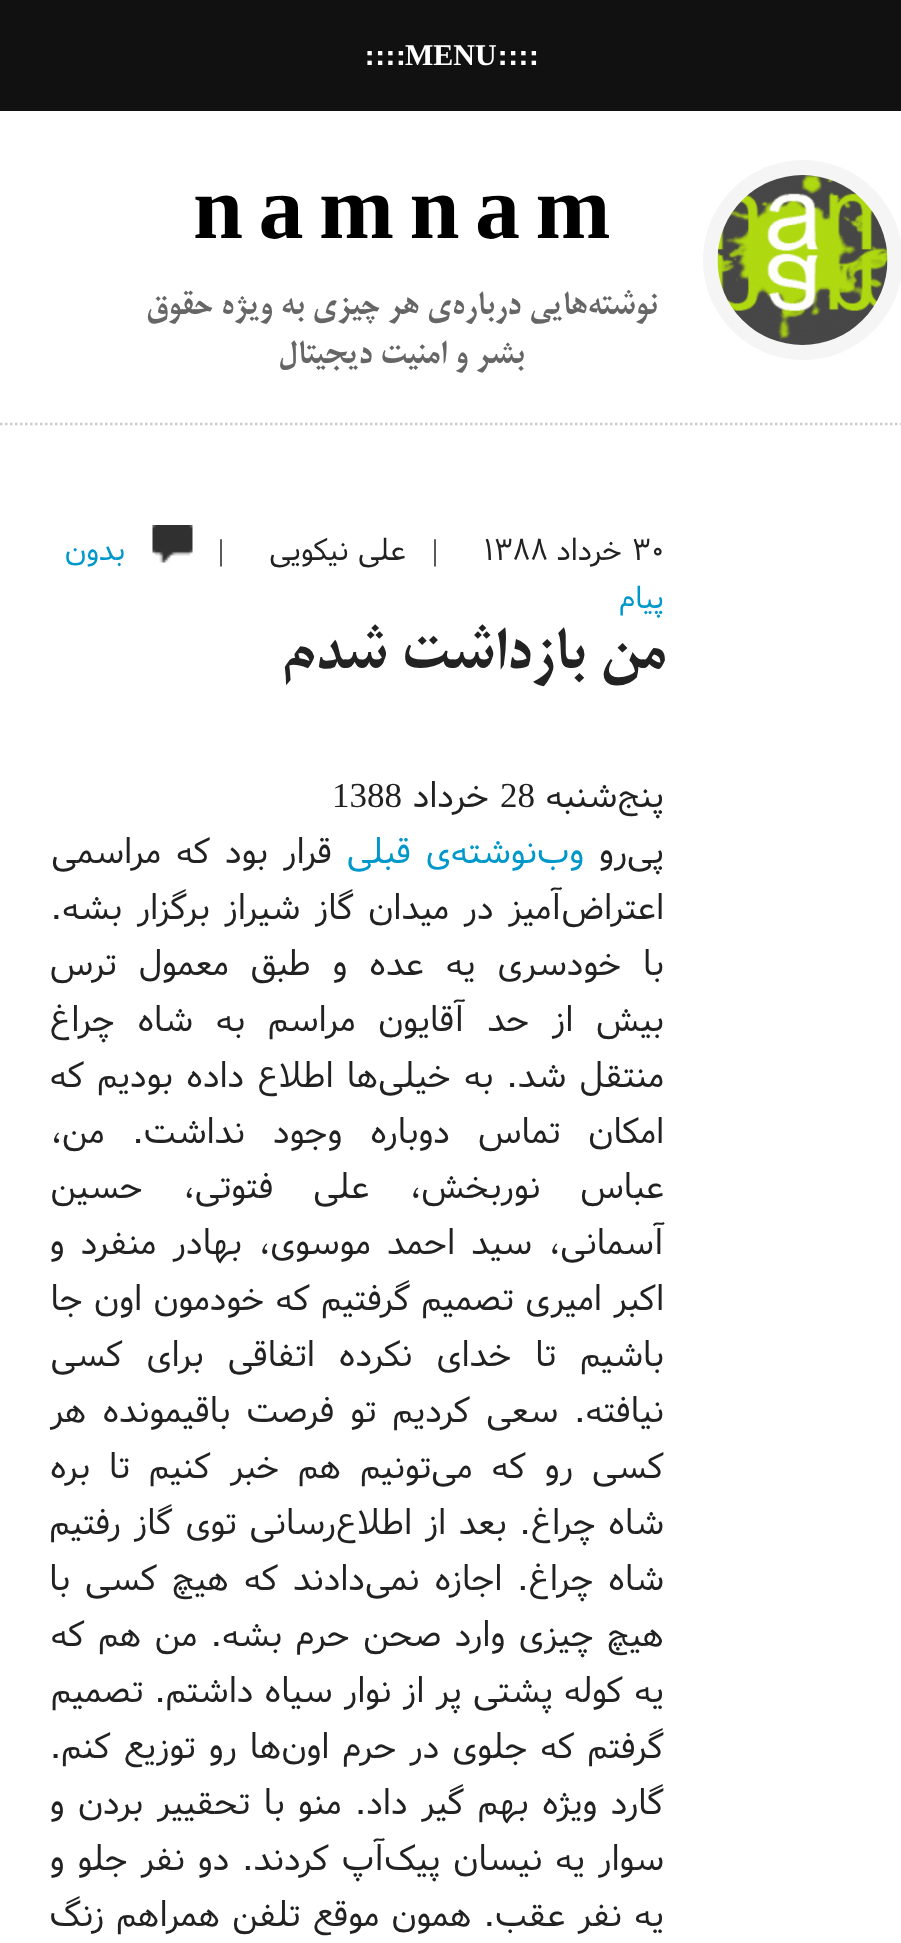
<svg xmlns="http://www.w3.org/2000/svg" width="901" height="1943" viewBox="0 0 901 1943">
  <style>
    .t1 { font: bold 30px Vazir; fill: #fff; }
    .t2 { font: bold 30px Liberation Serif; fill: #fff; }
    .t3 { font: bold 90px Liberation Serif; letter-spacing: -2.5px; fill: #000; }
    .t4 { font: bold 35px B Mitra; direction: rtl; fill: #666; }
    .t5 { font: 30px Vazir; fill: #222; }
    .t6 { font: 30px Vazir; direction: rtl; fill: #222; }
    .t7 { font: 30px Liberation Serif; fill: #222; }
    .t8 { font: 30px Vazir; direction: rtl; fill: #0098cb; }
    .t9 { font: bold 63px B Mitra; direction: rtl; fill: #222; }
    .t10 { font: 35px Vazir; direction: rtl; fill: #222; }
    .t11 { font: 35px Liberation Serif; fill: #222; }
    .t12 { font: 35px Vazir; direction: rtl; fill: #0098cb; }
  </style>
  <rect width="100%" height="100%" fill="#fff"/>
  <rect x="0" y="0" width="901" height="111" fill="#111"/>
  <text x="497" y="65" class="t1">::::</text>
  <text x="405" y="65" class="t2">MENU</text>
  <text x="364" y="65" class="t1">::::</text>
  <path d="M0 424H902.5" fill="none" stroke="#ccc" stroke-width="2.5" stroke-dasharray="2.5 2.5"/>
  <circle cx="803" cy="260" r="100" fill="#f5f5f5"/>
  <image x="717" y="175" width="171" height="170" href="images/1.png"/>
  <text x="193" y="238" word-spacing="-2" class="t3">n a m n a m</text>
  <text x="657" y="314" class="t4">نوشته‌هایی درباره‌ی هر چیزی به ویژه حقوق</text>
  <text x="524" y="363" class="t4">بشر و امنیت دیجیتال</text>
  <text x="632" y="560" class="t5">۳۰</text>
  <text x="622" y="560" class="t6">خرداد</text>
  <text x="484" y="560" class="t5">۱۳۸۸</text>
  <text x="432" y="560" class="t7">|</text>
  <text x="406" y="560" class="t6">علی نیکویی</text>
  <text x="218" y="560" class="t7">|</text>
  <image x="152" y="525" width="41" height="38" href="images/2.png"/>
  <text x="125" y="560" class="t8">بدون</text>
  <text x="664" y="608" class="t8">پیام</text>
  <text x="665" y="668" class="t9">من بازداشت شدم</text>
  <text x="664" y="807" class="t10">پنج‌شنبه</text>
  <text x="500" y="807" class="t11">28</text>
  <text x="489" y="807" class="t10">خرداد</text>
  <text x="332" y="807" class="t11">1388</text>
  <text x="664" y="863" class="t10">پی‌رو</text>
  <text x="584" y="863" word-spacing="4" class="t12">وب‌نوشته‌ی قبلی</text>
  <text x="332" y="863" word-spacing="4" class="t10">قرار بود که مراسمی</text>
  <text x="664" y="919" word-spacing="3.5" class="t10">اعتراض‌آمیز در میدان گاز شیراز برگزار بشه.</text>
  <text x="664" y="975" word-spacing="11" class="t10">با خودسری یه عده و طبق معمول ترس</text>
  <text x="664" y="1031" word-spacing="11.75" class="t10">بیش از حد آقایون مراسم به شاه چراغ</text>
  <text x="664" y="1087" word-spacing="2.25" class="t10">منتقل شد. به خیلی‌ها اطلاع داده بودیم که</text>
  <text x="664" y="1143" word-spacing="17" class="t10">امکان تماس دوباره وجود نداشت. من،</text>
  <text x="664" y="1198" word-spacing="29" class="t10">عباس نوربخش، علی فتوتی، حسین</text>
  <text x="664" y="1254" word-spacing="5.25" class="t10">آسمانی، سید احمد موسوی، بهادر منفرد و</text>
  <text x="664" y="1310" word-spacing="0.5" class="t10">اکبر امیری تصمیم گرفتیم که خودمون اون جا</text>
  <text x="664" y="1366" word-spacing="13" class="t10">باشیم تا خدای نکرده اتفاقی برای کسی</text>
  <text x="664" y="1422" word-spacing="5" class="t10">نیافته. سعی کردیم تو فرصت باقیمونده هر</text>
  <text x="664" y="1478" word-spacing="8" class="t10">کسی رو که می‌تونیم هم خبر کنیم تا بره</text>
  <text x="664" y="1534" word-spacing="1.75" class="t10">شاه چراغ. بعد از اطلاع‌رسانی توی گاز رفتیم</text>
  <text x="664" y="1590" word-spacing="4" class="t10">شاه چراغ. اجازه نمی‌دادند که هیچ کسی با</text>
  <text x="664" y="1646" word-spacing="2.5" class="t10">هیچ چیزی وارد صحن حرم بشه. من هم که</text>
  <text x="664" y="1702" word-spacing="0.25" class="t10">یه کوله پشتی پر از نوار سیاه داشتم. تصمیم</text>
  <text x="664" y="1758" word-spacing="2" class="t10">گرفتم که جلوی در حرم اون‌ها رو توزیع کنم.</text>
  <text x="664" y="1814" word-spacing="2.5" class="t10">گارد ویژه بهم گیر داد. منو با تحقییر بردن و</text>
  <text x="664" y="1870" word-spacing="2" class="t10">سوار یه نیسان پیک‌آپ کردند. دو نفر جلو و</text>
  <text x="664" y="1926" word-spacing="1.25" class="t10">یه نفر عقب. همون موقع تلفن همراهم زنگ</text>
</svg>
